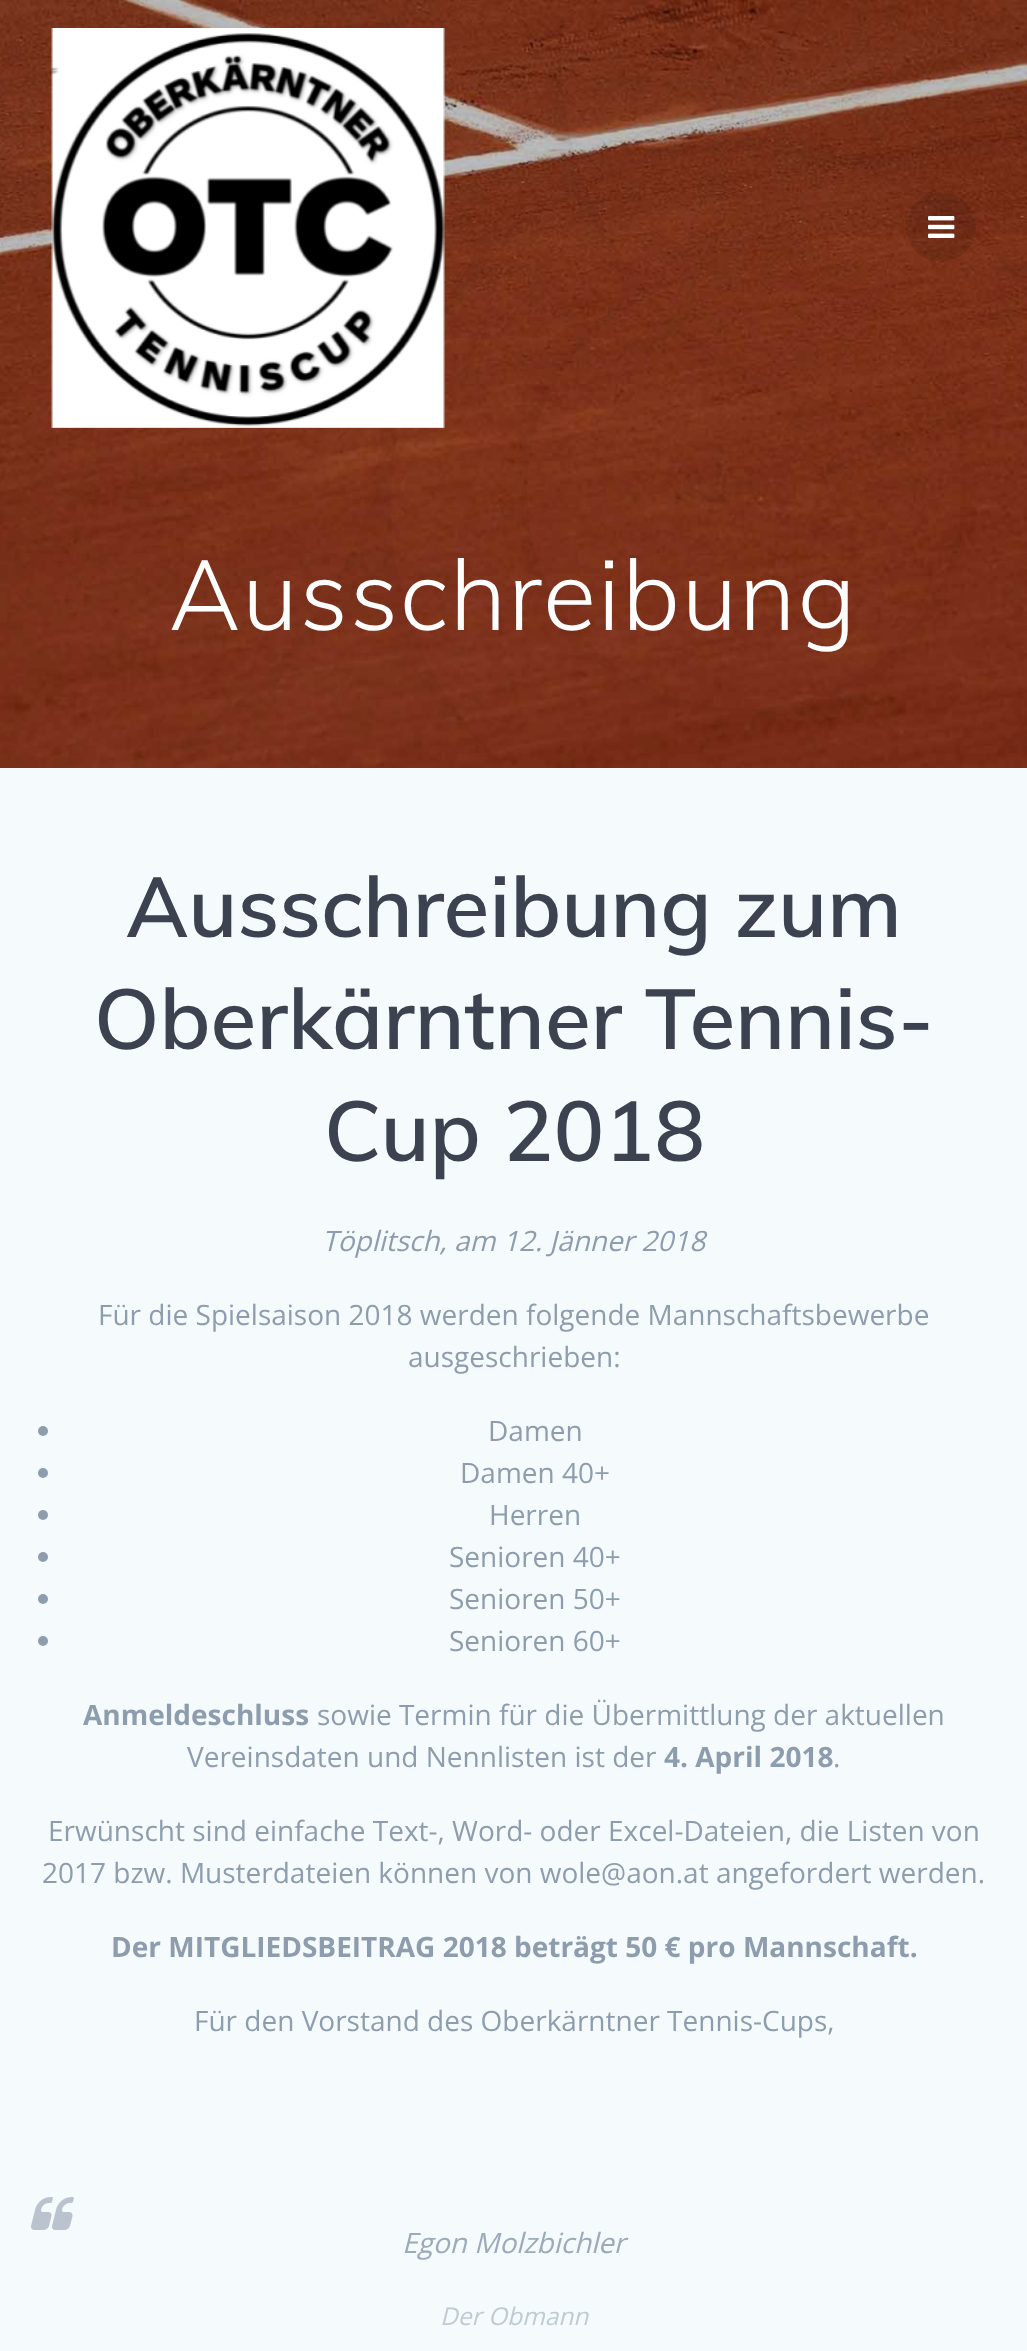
<svg xmlns="http://www.w3.org/2000/svg" width="1027" height="2351" viewBox="0 0 1027 2351">
  <style>
    .t1 { font: 300 98px Muli; letter-spacing: 1.75px; fill: #fff; }
    .t2 { font: 600 84px Muli; fill: #3c424f; }
    .t3 { font: italic 28px Open Sans; fill: #8e9dae; }
    .t4 { font: 28px Open Sans; fill: #8e9dae; }
    .t5 { font: bold 28px Open Sans; fill: #8e9dae; }
    .t6 { font: italic 28px Open Sans; fill: #9daab9; }
    .t7 { font: italic 24.5px Open Sans; fill: #c0cad4; }
  </style>
  <rect width="100%" height="100%" fill="#f5fafd"/>
  <image x="0" y="0" width="1027" height="768" href="images/3.png"/>
  <image x="181" y="16" width="846" height="741" href="images/4.png"/>
  <image x="51" y="28" width="394" height="400" href="images/1.png"/>
  <circle cx="941" cy="227" r="35" fill="#0000001a"/>
  <image x="928" y="216" width="27" height="22" href="images/2.png"/>
  <text x="169" y="630" class="t1">Ausschreibung</text>
  <text x="126" y="937" class="t2">Ausschreibung zum</text>
  <text x="94" y="1049" class="t2">Oberkärntner Tennis-</text>
  <text x="324" y="1161" class="t2">Cup 2018</text>
  <text x="322" y="1251" class="t3">Töplitsch, am 12. Jänner 2018</text>
  <text x="98" y="1325" class="t4">Für die Spielsaison 2018 werden folgende Mannschaftsbewerbe</text>
  <text x="408" y="1367" class="t4">ausgeschrieben:</text>
  <circle cx="43" cy="1431" r="5" fill="#8e9dae"/>
  <text x="488" y="1441" class="t4">Damen</text>
  <circle cx="43" cy="1473" r="5" fill="#8e9dae"/>
  <text x="460" y="1483" class="t4">Damen 40+</text>
  <circle cx="43" cy="1515" r="5" fill="#8e9dae"/>
  <text x="489" y="1525" class="t4">Herren</text>
  <circle cx="43" cy="1557" r="5" fill="#8e9dae"/>
  <text x="449" y="1567" class="t4">Senioren 40+</text>
  <circle cx="43" cy="1599" r="5" fill="#8e9dae"/>
  <text x="449" y="1609" class="t4">Senioren 50+</text>
  <circle cx="43" cy="1641" r="5" fill="#8e9dae"/>
  <text x="449" y="1651" class="t4">Senioren 60+</text>
  <text x="83" y="1725" class="t5">Anmeldeschluss</text>
  <text x="317" y="1725" class="t4">sowie Termin für die Übermittlung der aktuellen</text>
  <text x="187" y="1767" class="t4">Vereinsdaten und Nennlisten ist der</text>
  <text x="664" y="1767" class="t5">4. April 2018</text>
  <text x="833" y="1767" class="t4">.</text>
  <text x="48" y="1841" class="t4">Erwünscht sind einfache Text-, Word- oder Excel-Dateien, die Listen von</text>
  <text x="42" y="1883" class="t4">2017 bzw. Musterdateien können von wole@aon.at angefordert werden.</text>
  <text x="111" y="1957" class="t5">Der MITGLIEDSBEITRAG 2018 beträgt 50 € pro Mannschaft.</text>
  <text x="194" y="2031" class="t4">Für den Vorstand des Oberkärntner Tennis-Cups,</text>
  <image x="31" y="2197" width="43" height="33" href="images/5.png"/>
  <text x="402" y="2253" class="t6">Egon Molzbichler</text>
  <text x="440" y="2325" class="t7">Der Obmann</text>
</svg>
